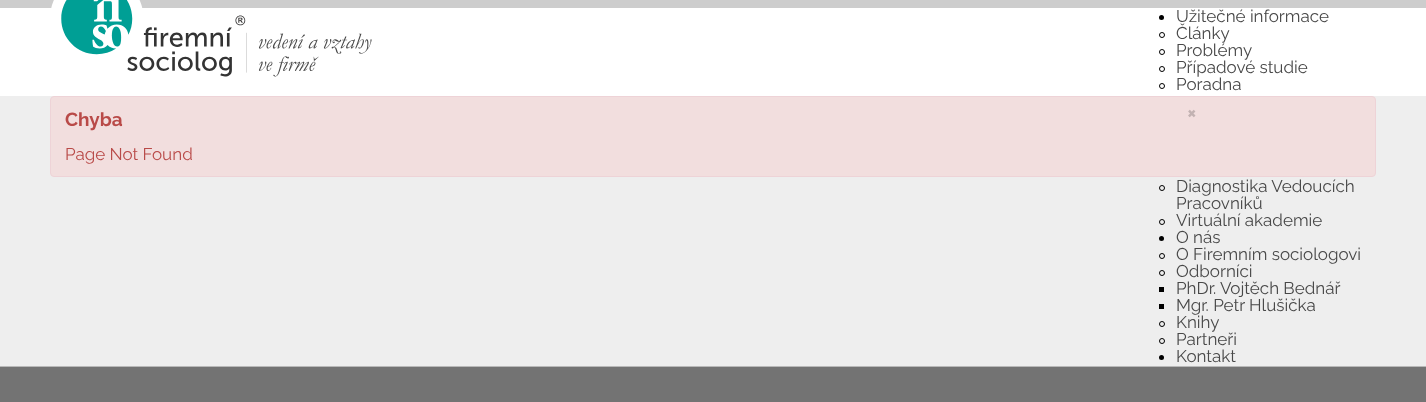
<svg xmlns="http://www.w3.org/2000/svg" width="1426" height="402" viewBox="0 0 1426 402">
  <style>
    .t1 { font: bold 19px Raleway; fill: #b94a48; }
    .t2 { font: bold 20px Raleway; fill: #c2b2b2; }
    .t3 { font: 17px Raleway; fill: #b94a48; }
    .t4 { font: 17px Raleway; fill: #484848; }
  </style>
  <rect width="100%" height="100%" fill="#fff"/>
  <rect x="0" y="96" width="1426" height="270" fill="#eee"/>
  <rect x="50.5" y="96.5" width="1325" height="80" rx="3.5" fill="#f2dede" stroke="#eed3d7"/>
  <text x="65" y="126" class="t1">Chyba</text>
  <text x="1187" y="119" class="t2">×</text>
  <text x="65" y="160" class="t3">Page Not Found</text>
  <rect x="0" y="0" width="1426" height="8" fill="#cdcdcd"/>
  <image x="51" y="0" width="321" height="77" href="images/1.png"/>
  <circle cx="1161.5" cy="17.5" r="2.5" fill="#000"/>
  <text x="1176" y="22" class="t4">Užitečné informace</text>
  <circle cx="1162" cy="35" r="2.5" fill="none" stroke="#000"/>
  <text x="1176" y="39" class="t4">Články</text>
  <circle cx="1162" cy="52" r="2.5" fill="none" stroke="#000"/>
  <text x="1176" y="56" class="t4">Problémy</text>
  <circle cx="1162" cy="69" r="2.5" fill="none" stroke="#000"/>
  <text x="1176" y="73" class="t4">Případové studie</text>
  <circle cx="1162" cy="86" r="2.5" fill="none" stroke="#000"/>
  <text x="1176" y="90" class="t4">Poradna</text>
  <circle cx="1162" cy="188" r="2.5" fill="none" stroke="#000"/>
  <text x="1176" y="192" class="t4">Diagnostika Vedoucích</text>
  <text x="1176" y="209" class="t4">Pracovníků</text>
  <circle cx="1162" cy="222" r="2.5" fill="none" stroke="#000"/>
  <text x="1176" y="226" class="t4">Virtuální akademie</text>
  <circle cx="1161.5" cy="238.5" r="2.5" fill="#000"/>
  <text x="1176" y="243" class="t4">O nás</text>
  <circle cx="1162" cy="256" r="2.5" fill="none" stroke="#000"/>
  <text x="1176" y="260" class="t4">O Firemním sociologovi</text>
  <circle cx="1162" cy="273" r="2.5" fill="none" stroke="#000"/>
  <text x="1176" y="277" class="t4">Odborníci</text>
  <rect x="1159" y="287" width="5" height="5" fill="#000"/>
  <text x="1176" y="294" class="t4">PhDr. Vojtěch Bednář</text>
  <rect x="1159" y="304" width="5" height="5" fill="#000"/>
  <text x="1176" y="311" class="t4">Mgr. Petr Hlušička</text>
  <circle cx="1162" cy="324" r="2.5" fill="none" stroke="#000"/>
  <text x="1176" y="328" class="t4">Knihy</text>
  <circle cx="1162" cy="341" r="2.5" fill="none" stroke="#000"/>
  <text x="1176" y="345" class="t4">Partneři</text>
  <circle cx="1161.5" cy="357.5" r="2.5" fill="#000"/>
  <text x="1176" y="362" class="t4">Kontakt</text>
  <rect x="0" y="367" width="1426" height="35" fill="#737373"/>
  <rect x="0" y="366" width="1426" height="1" fill="#b9b9b9"/>
</svg>
